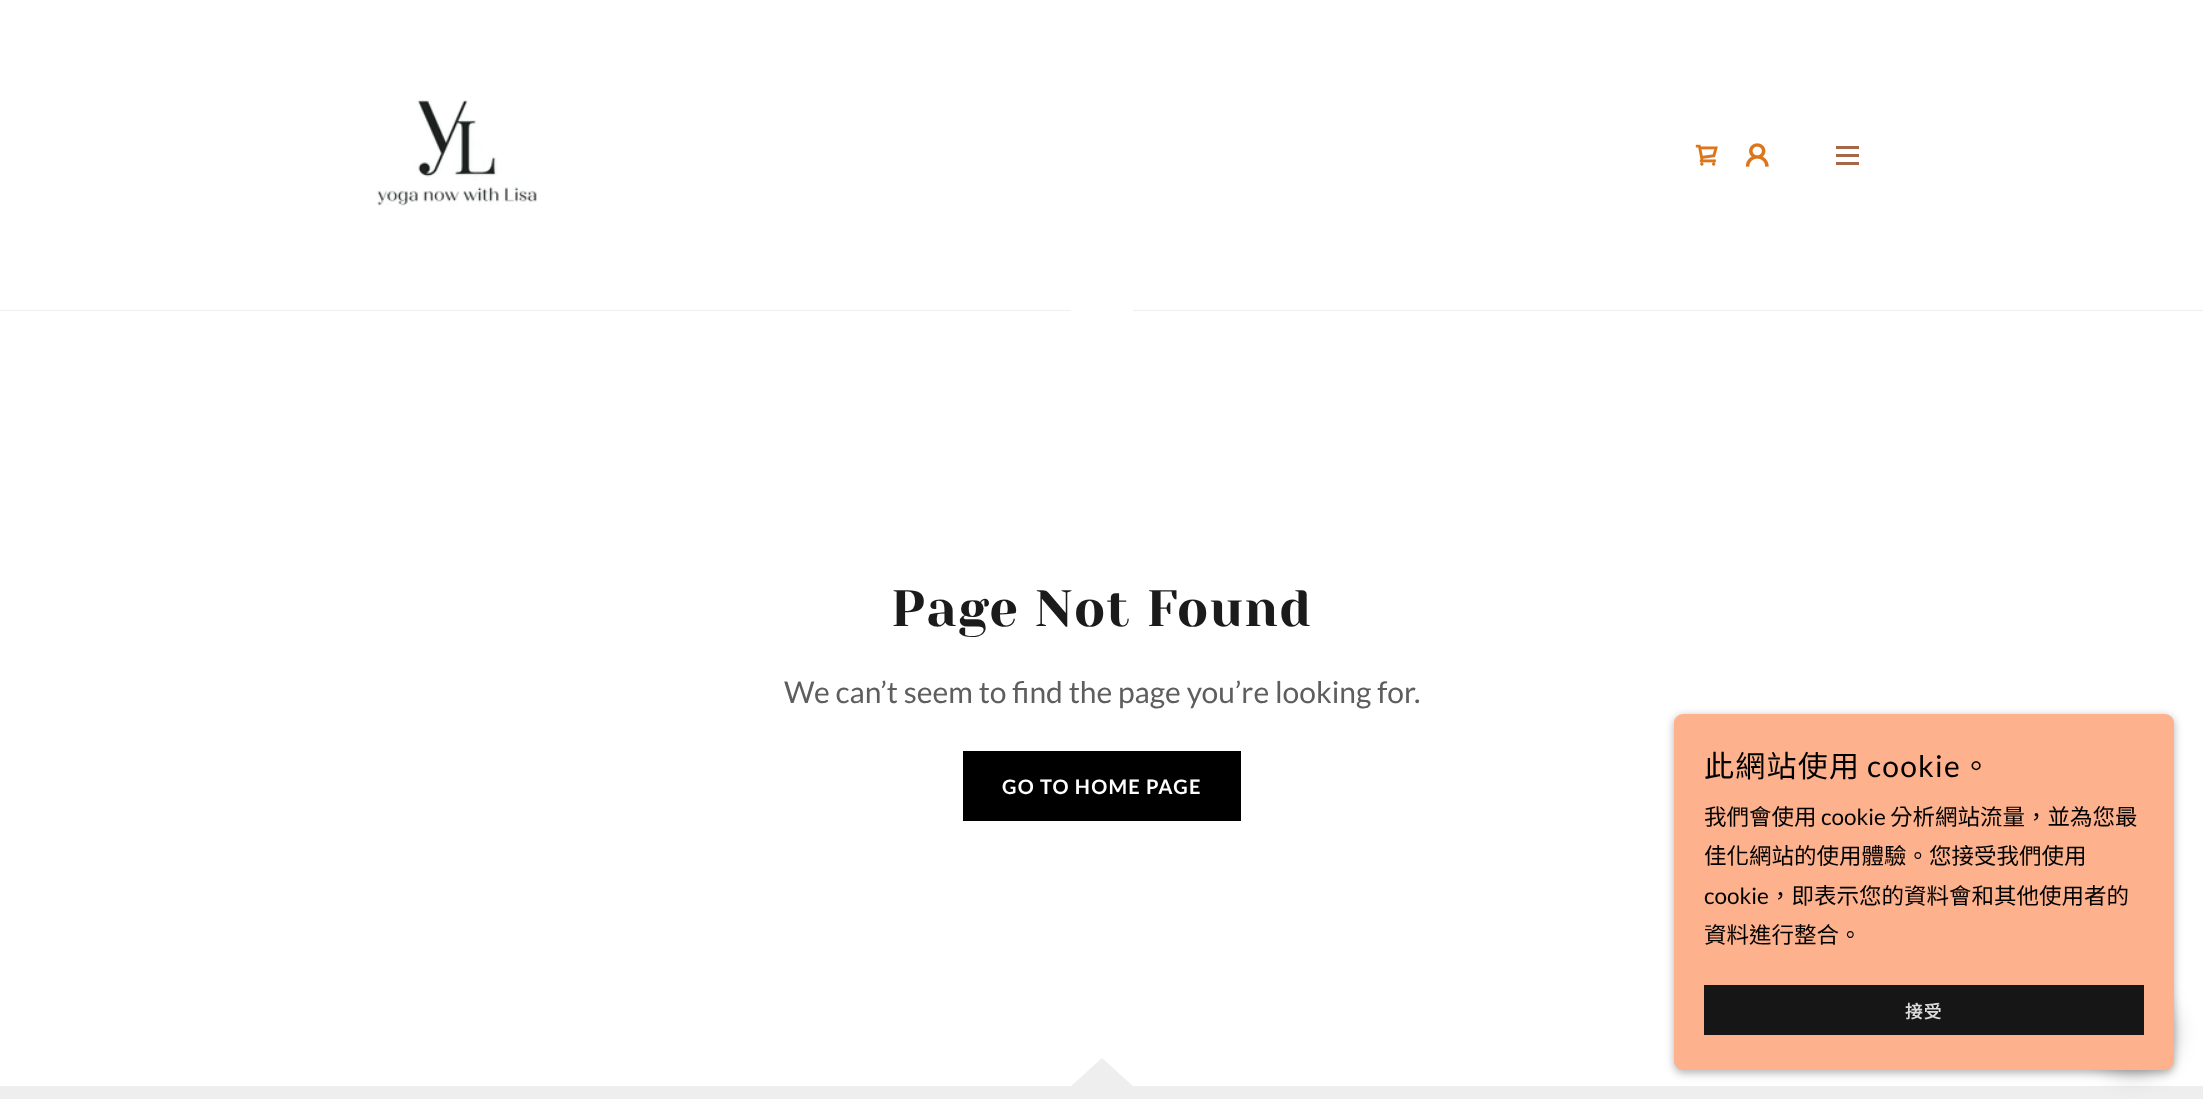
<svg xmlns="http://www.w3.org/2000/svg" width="2203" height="1099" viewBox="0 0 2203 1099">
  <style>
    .t1 { font: 51.25px Yeseva One; letter-spacing: 1.25px; fill: #1b1b1b; }
    .t2 { font: 30px Lato; fill: #5e5e5e; }
    .t3 { font: bold 20px Lato; letter-spacing: 1.25px; fill: #fff; }
    .t4 { font: 30px Noto Sans CJK TC; letter-spacing: 1.25px; fill: #000; }
    .t5 { font: 30px Lato; letter-spacing: 1.25px; fill: #000; }
    .t6 { font: 22.5px Noto Sans CJK TC; fill: #000; }
    .t7 { font: 22.5px Lato; fill: #000; }
    .t8 { font: bold 17.5px Noto Sans CJK TC; letter-spacing: 1.25px; fill: #dbdbdb; }
  </style>
  <rect width="100%" height="100%" fill="#fff"/>
  <rect x="0" y="310" width="2203" height="1" fill="#efefef"/>
  <image x="377" y="100" width="160" height="106" href="images/1.png"/>
  <image x="1695" y="144" width="23" height="22" href="images/2.png"/>
  <image x="1745" y="143" width="24" height="24" href="images/3.png"/>
  <rect x="1836" y="146" width="23" height="3" fill="#a66749"/>
  <rect x="1836" y="154" width="23" height="3" fill="#a66749"/>
  <rect x="1836" y="162" width="23" height="3" fill="#a66749"/>
  <path d="M1102 339L1135 309H1069Z" fill="#fff" fill-rule="evenodd"/>
  <text x="891" y="626" class="t1">Page Not Found</text>
  <text x="784" y="703" class="t2">We can’t seem to find the page you’re looking for.</text>
  <rect x="963" y="751" width="278" height="70" fill="#000"/>
  <text x="1002" y="794" class="t3">GO TO HOME PAGE</text>
  <rect x="1674" y="716" width="500" height="357" rx="9" fill="#0000004d" filter="blur(4px)"/>
  <rect x="0" y="1086" width="2203" height="13" fill="#eee"/>
  <rect x="2093" y="993" width="81" height="81" rx="40.5" fill="#00000040" filter="blur(11px)"/>
  <rect x="1674" y="714" width="500" height="356" rx="9" fill="#fdb18d"/>
  <text x="1704" y="777" class="t4">此網站使用</text>
  <text x="1867" y="777" class="t5">cookie</text>
  <text x="1961" y="777" class="t4">。</text>
  <text x="1704" y="825" class="t6">我們會使用</text>
  <text x="1821" y="825" class="t7">cookie</text>
  <text x="1890" y="825" class="t6">分析網站流量，並為您最</text>
  <text x="1704" y="864" class="t6">佳化網站的使用體驗。您接受我們使用</text>
  <text x="1704" y="904" class="t7">cookie</text>
  <text x="1769" y="904" class="t6">，即表示您的資料會和其他使用者的</text>
  <text x="1704" y="943" class="t6">資料進行整合。</text>
  <rect x="1704" y="985" width="440" height="50" fill="#161616"/>
  <text x="1905" y="1018" class="t8">接受</text>
  <path d="M1102 1058L1069 1088H1135Z" fill="#eee" fill-rule="evenodd"/>
</svg>
